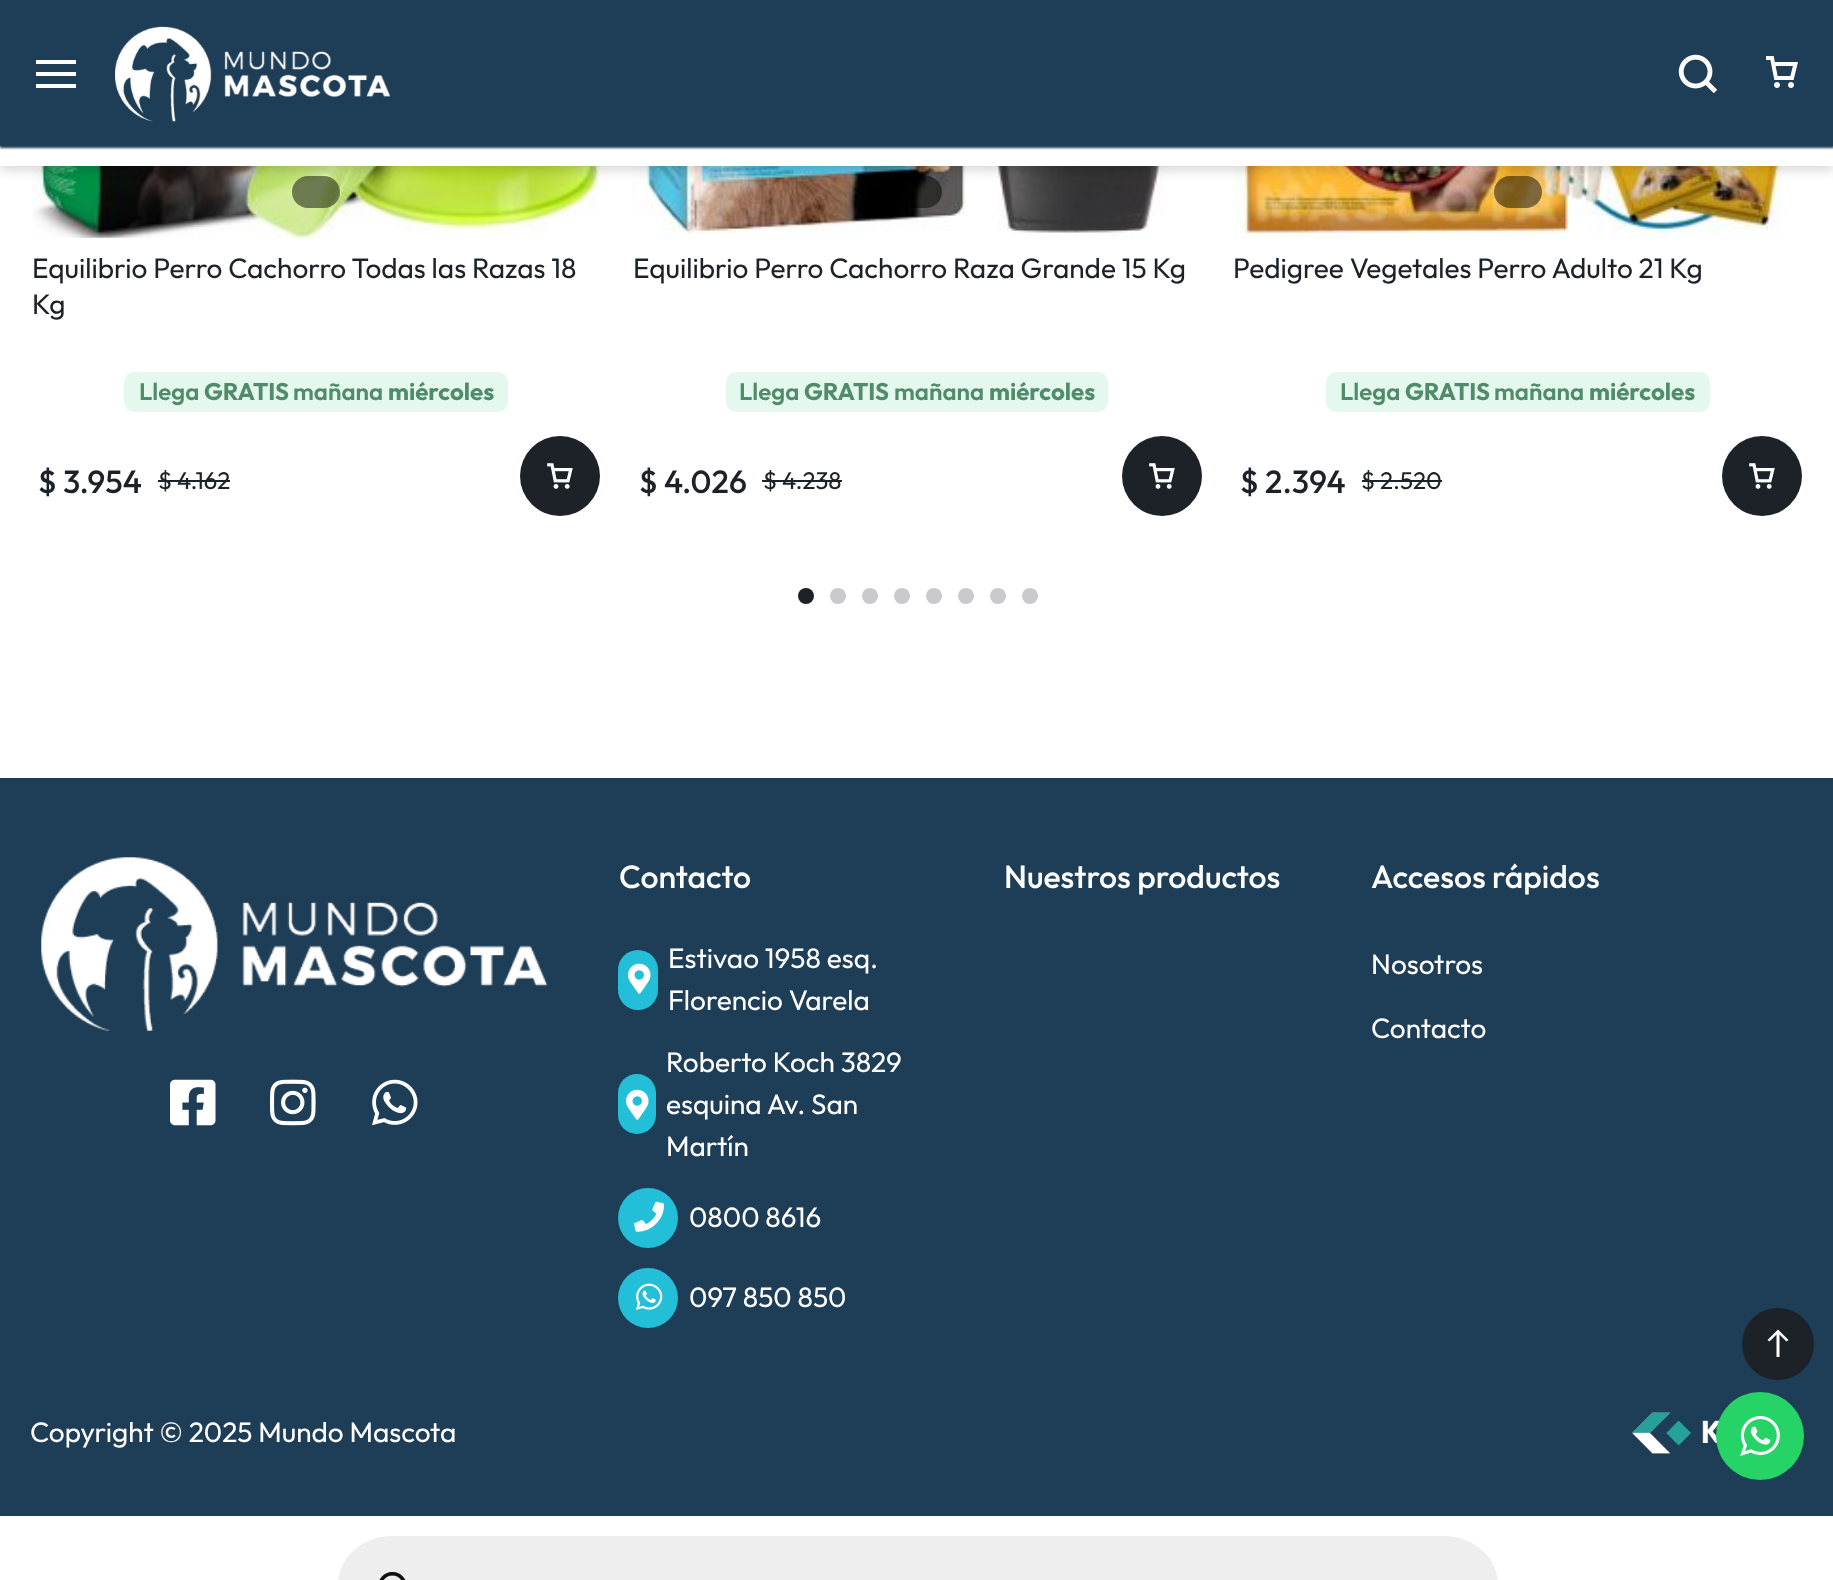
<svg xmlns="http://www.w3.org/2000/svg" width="1833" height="1580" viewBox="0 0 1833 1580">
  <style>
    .t1 { font: 28px Outfit; fill: #1d2128; }
    .t2 { font: 600 24px Outfit; fill: #508b6b; }
    .t3 { font: bold 24px Outfit; fill: #508b6b; }
    .t4 { font: 500 32px Outfit; fill: #1d2128; }
    .t5 { font: 24px Outfit; fill: #1d2128; }
    .t6 { font: 500 32px Outfit; fill: #fff; }
    .t7 { font: 28px Outfit; fill: #fff; }
  </style>
  <rect width="100%" height="100%" fill="#fff"/>
  <image x="32" y="166" width="569" height="72" href="images/4.png"/>
  <rect x="292" y="176" width="48" height="32" rx="16" fill="#0000007a"/>
  <image x="632" y="166" width="563" height="72" href="images/6.png"/>
  <rect x="894" y="176" width="48" height="32" rx="16" fill="#0000007a"/>
  <image x="1234" y="166" width="568" height="72" href="images/7.png"/>
  <rect x="1494" y="176" width="48" height="32" rx="16" fill="#0000007a"/>
  <rect x="0" y="4" width="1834" height="166" fill="#00000029" filter="blur(6px)"/>
  <rect x="0" y="146" width="1833" height="20" fill="#fff"/>
  <rect x="0" y="2" width="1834" height="146" fill="#1e3e57" filter="blur(1px)"/>
  <rect x="0" y="0" width="1833" height="146" fill="#1e3e57"/>
  <rect x="36" y="60" width="40" height="4" fill="#fff"/>
  <rect x="36" y="72" width="40" height="4" fill="#fff"/>
  <rect x="36" y="84" width="40" height="4" fill="#fff"/>
  <image x="115" y="26" width="276" height="96" href="images/1.png"/>
  <image x="1678" y="54" width="40" height="40" href="images/2.png"/>
  <image x="1766" y="56" width="32" height="32" href="images/3.png"/>
  <text x="32" y="278" class="t1">Equilibrio Perro Cachorro Todas las Razas 18</text>
  <text x="32" y="314" class="t1">Kg</text>
  <rect x="124" y="372" width="384" height="40" rx="10" fill="#e4f8ed"/>
  <text x="139" y="400" class="t2">Llega</text>
  <text x="204" y="400" class="t3">GRATIS</text>
  <text x="293" y="400" class="t2">mañana</text>
  <text x="388" y="400" class="t3">miércoles</text>
  <text x="38" y="493" class="t4">$ 3.954</text>
  <text x="158" y="489" class="t5">$ 4.162</text>
  <rect x="158" y="480" width="72" height="2" fill="#1d2128"/>
  <circle cx="560" cy="476" r="40" fill="#1d2128"/>
  <image x="547" y="463" width="26" height="26" href="images/5.png"/>
  <text x="633" y="278" class="t1">Equilibrio Perro Cachorro Raza Grande 15 Kg</text>
  <rect x="726" y="372" width="382" height="40" rx="10" fill="#e4f8ed"/>
  <text x="739" y="400" class="t2">Llega</text>
  <text x="804" y="400" class="t3">GRATIS</text>
  <text x="894" y="400" class="t2">mañana</text>
  <text x="989" y="400" class="t3">miércoles</text>
  <text x="639" y="493" class="t4">$ 4.026</text>
  <text x="763" y="489" class="t5">$ 4.238</text>
  <rect x="762" y="480" width="80" height="2" fill="#1d2128"/>
  <circle cx="1162" cy="476" r="40" fill="#1d2128"/>
  <image x="1149" y="463" width="26" height="26" href="images/5.png"/>
  <text x="1233" y="278" class="t1">Pedigree Vegetales Perro Adulto 21 Kg</text>
  <rect x="1326" y="372" width="384" height="40" rx="10" fill="#e4f8ed"/>
  <text x="1340" y="400" class="t2">Llega</text>
  <text x="1405" y="400" class="t3">GRATIS</text>
  <text x="1494" y="400" class="t2">mañana</text>
  <text x="1589" y="400" class="t3">miércoles</text>
  <text x="1240" y="493" class="t4">$ 2.394</text>
  <text x="1361" y="489" class="t5">$ 2.520</text>
  <rect x="1362" y="480" width="80" height="2" fill="#1d2128"/>
  <circle cx="1762" cy="476" r="40" fill="#1d2128"/>
  <image x="1749" y="463" width="26" height="26" href="images/5.png"/>
  <circle cx="806" cy="596" r="8" fill="#1d2128"/>
  <circle cx="838" cy="596" r="8" fill="#c9cacc"/>
  <circle cx="870" cy="596" r="8" fill="#c9cacc"/>
  <circle cx="902" cy="596" r="8" fill="#c9cacc"/>
  <circle cx="934" cy="596" r="8" fill="#c9cacc"/>
  <circle cx="966" cy="596" r="8" fill="#c9cacc"/>
  <circle cx="998" cy="596" r="8" fill="#c9cacc"/>
  <circle cx="1030" cy="596" r="8" fill="#c9cacc"/>
  <rect x="0" y="778" width="1833" height="738" fill="#1e3e57"/>
  <image x="41" y="857" width="507" height="175" href="images/8.png"/>
  <image x="170" y="1079" width="46" height="47" href="images/9.png"/>
  <image x="270" y="1079" width="46" height="47" href="images/10.png"/>
  <image x="372" y="1079" width="46" height="47" href="images/11.png"/>
  <text x="619" y="888" class="t6">Contacto</text>
  <rect x="618" y="950" width="40" height="60" rx="20" fill="#23bfd8"/>
  <image x="628" y="963" width="23" height="31" href="images/12.png"/>
  <text x="668" y="968" class="t7">Estivao 1958 esq.</text>
  <text x="668" y="1010" class="t7">Florencio Varela</text>
  <rect x="618" y="1074" width="38" height="60" rx="19" fill="#23bfd8"/>
  <image x="626" y="1089" width="23" height="31" href="images/12.png"/>
  <text x="666" y="1072" class="t7">Roberto Koch 3829</text>
  <text x="666" y="1114" class="t7">esquina Av. San</text>
  <text x="666" y="1156" class="t7">Martín</text>
  <circle cx="648" cy="1218" r="30" fill="#23bfd8"/>
  <image x="634" y="1201" width="31" height="31" href="images/13.png"/>
  <text x="689" y="1227" class="t7">0800 8616</text>
  <circle cx="648" cy="1298" r="30" fill="#23bfd8"/>
  <image x="636" y="1283" width="27" height="27" href="images/14.png"/>
  <text x="689" y="1307" class="t7">097 850 850</text>
  <text x="1004" y="888" class="t6">Nuestros productos</text>
  <text x="1371" y="888" class="t6">Accesos rápidos</text>
  <text x="1371" y="974" class="t7">Nosotros</text>
  <text x="1371" y="1038" class="t7">Contacto</text>
  <text x="30" y="1442" class="t7">Copyright © 2025 Mundo Mascota</text>
  <image x="1632" y="1412" width="87" height="42" href="images/15.png"/>
  <path d="M1742 1344C1742 1324 1758 1308 1778 1308C1798 1308 1814 1324 1814 1344C1814 1364 1798 1380 1778 1380C1758 1380 1742 1364 1742 1344Z" fill="#1d2128"/>
  <path d="M1767.5 1340L1769.5 1341.5L1776.5 1334.5V1357H1779.5V1334.5L1786.5 1341.5L1788.5 1340L1778 1329.5Z" fill="#fff"/>
  <circle cx="1760" cy="1436" r="44" fill="#25d366"/>
  <image x="1740" y="1416" width="40" height="40" href="images/16.png"/>
  <rect x="338" y="1536" width="1160" height="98" rx="54" fill="#eee"/>
  <image x="379" y="1572" width="27" height="8" href="images/17.png"/>
</svg>
